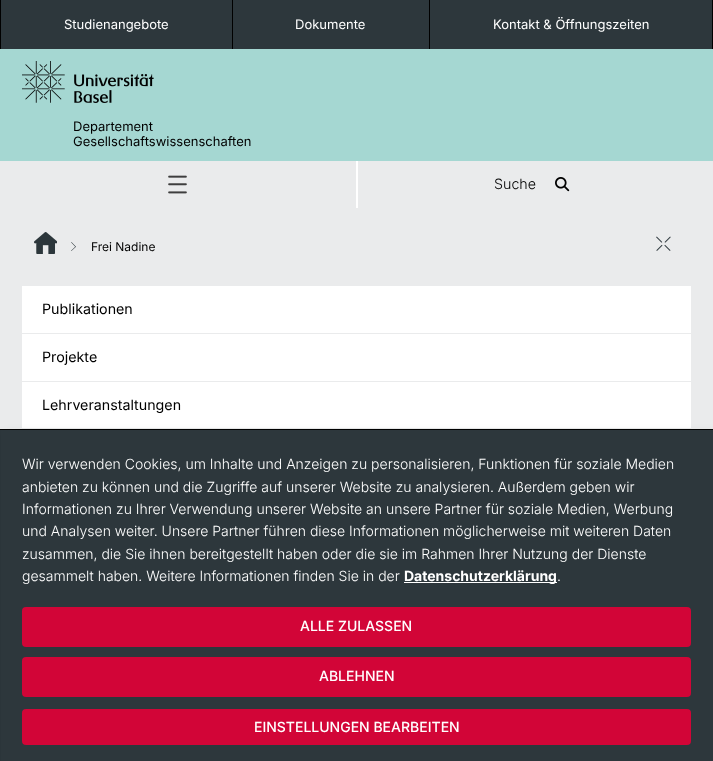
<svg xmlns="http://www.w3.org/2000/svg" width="713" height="761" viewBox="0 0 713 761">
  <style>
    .t1 { font: 13px Inter; fill: #fff; }
    .t2 { font: 13px Inter; fill: #000; }
    .t3 { font: 300 14.25px Inter; fill: #000; }
    .t4 { font: 12px Inter; fill: #000; }
    .t5 { font: 14.25px Inter; fill: #000; }
    .t6 { font: 300 14px Inter; fill: #fff; }
    .t7 { font: bold 14px Inter; fill: #fff; }
    .t8 { font: 500 14px Inter; fill: #fff; }
  </style>
  <rect width="100%" height="100%" fill="#2d373c"/>
  <rect x="232" y="0" width="1" height="49" fill="#000"/>
  <rect x="0" y="0" width="1" height="49" fill="#000"/>
  <text x="64" y="29" class="t1">Studienangebote</text>
  <rect x="429" y="0" width="1" height="49" fill="#000"/>
  <text x="295" y="29" class="t1">Dokumente</text>
  <rect x="712" y="0" width="1" height="49" fill="#000"/>
  <text x="493" y="29" class="t1">Kontakt &amp; Öffnungszeiten</text>
  <rect x="0" y="49" width="713" height="112" fill="#a5d7d2"/>
  <image x="22" y="61" width="132" height="42" href="images/1.png"/>
  <text x="73" y="131" class="t2">Departement</text>
  <text x="73" y="146" class="t2">Gesellschaftswissenschaften</text>
  <rect x="356" y="161" width="2" height="47" fill="#fff"/>
  <rect x="0" y="161" width="356" height="47" fill="#eaebec"/>
  <image x="168" y="175" width="19" height="19" href="images/2.png"/>
  <rect x="358" y="161" width="355" height="47" fill="#eaebec"/>
  <text x="494" y="189" class="t3">Suche</text>
  <image x="555" y="177" width="15" height="15" href="images/3.png"/>
  <rect x="0" y="208" width="713" height="221" fill="#eaebec"/>
  <image x="34" y="232" width="23" height="22" href="images/4.png"/>
  <image x="71" y="242" width="5" height="9" href="images/5.png"/>
  <text x="91" y="251" class="t4">Frei Nadine</text>
  <image x="656" y="236" width="15" height="15" href="images/6.png"/>
  <rect x="22" y="286" width="669" height="142" fill="#fff"/>
  <rect x="22" y="333" width="669" height="1" fill="#eaebec"/>
  <text x="42" y="314" class="t5">Publikationen</text>
  <rect x="22" y="381" width="669" height="1" fill="#eaebec"/>
  <text x="42" y="362" class="t5">Projekte</text>
  <text x="42" y="410" class="t5">Lehrveranstaltungen</text>
  <rect x="5" y="434" width="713" height="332" fill="#00000030" filter="blur(5px)"/>
  <rect x="1" y="430" width="712" height="331" fill="#2d373c"/>
  <rect x="0" y="429" width="713" height="1" fill="#000"/>
  <text x="22" y="469" class="t6">Wir verwenden Cookies, um Inhalte und Anzeigen zu personalisieren, Funktionen für soziale Medien</text>
  <text x="22" y="492" class="t6">anbieten zu können und die Zugriffe auf unserer Website zu analysieren. Außerdem geben wir</text>
  <text x="22" y="514" class="t6">Informationen zu Ihrer Verwendung unserer Website an unsere Partner für soziale Medien, Werbung</text>
  <text x="22" y="536" class="t6">und Analysen weiter. Unsere Partner führen diese Informationen möglicherweise mit weiteren Daten</text>
  <text x="22" y="559" class="t6">zusammen, die Sie ihnen bereitgestellt haben oder die sie im Rahmen Ihrer Nutzung der Dienste</text>
  <text x="22" y="581" class="t6">gesammelt haben. Weitere Informationen finden Sie in der</text>
  <rect x="404" y="582" width="153" height="1" fill="#fff"/>
  <text x="404" y="581" class="t7">Datenschutzerklärung</text>
  <text x="557" y="581" class="t6">.</text>
  <rect x="22" y="607" width="669" height="40" rx="4" fill="#d20537"/>
  <text x="300" y="631" class="t8">ALLE ZULASSEN</text>
  <rect x="22" y="657" width="669" height="40" rx="4" fill="#d20537"/>
  <text x="319" y="681" class="t8">ABLEHNEN</text>
  <rect x="22" y="709" width="669" height="36" rx="4" fill="#d20537"/>
  <text x="254" y="732" class="t8">EINSTELLUNGEN BEARBEITEN</text>
</svg>
